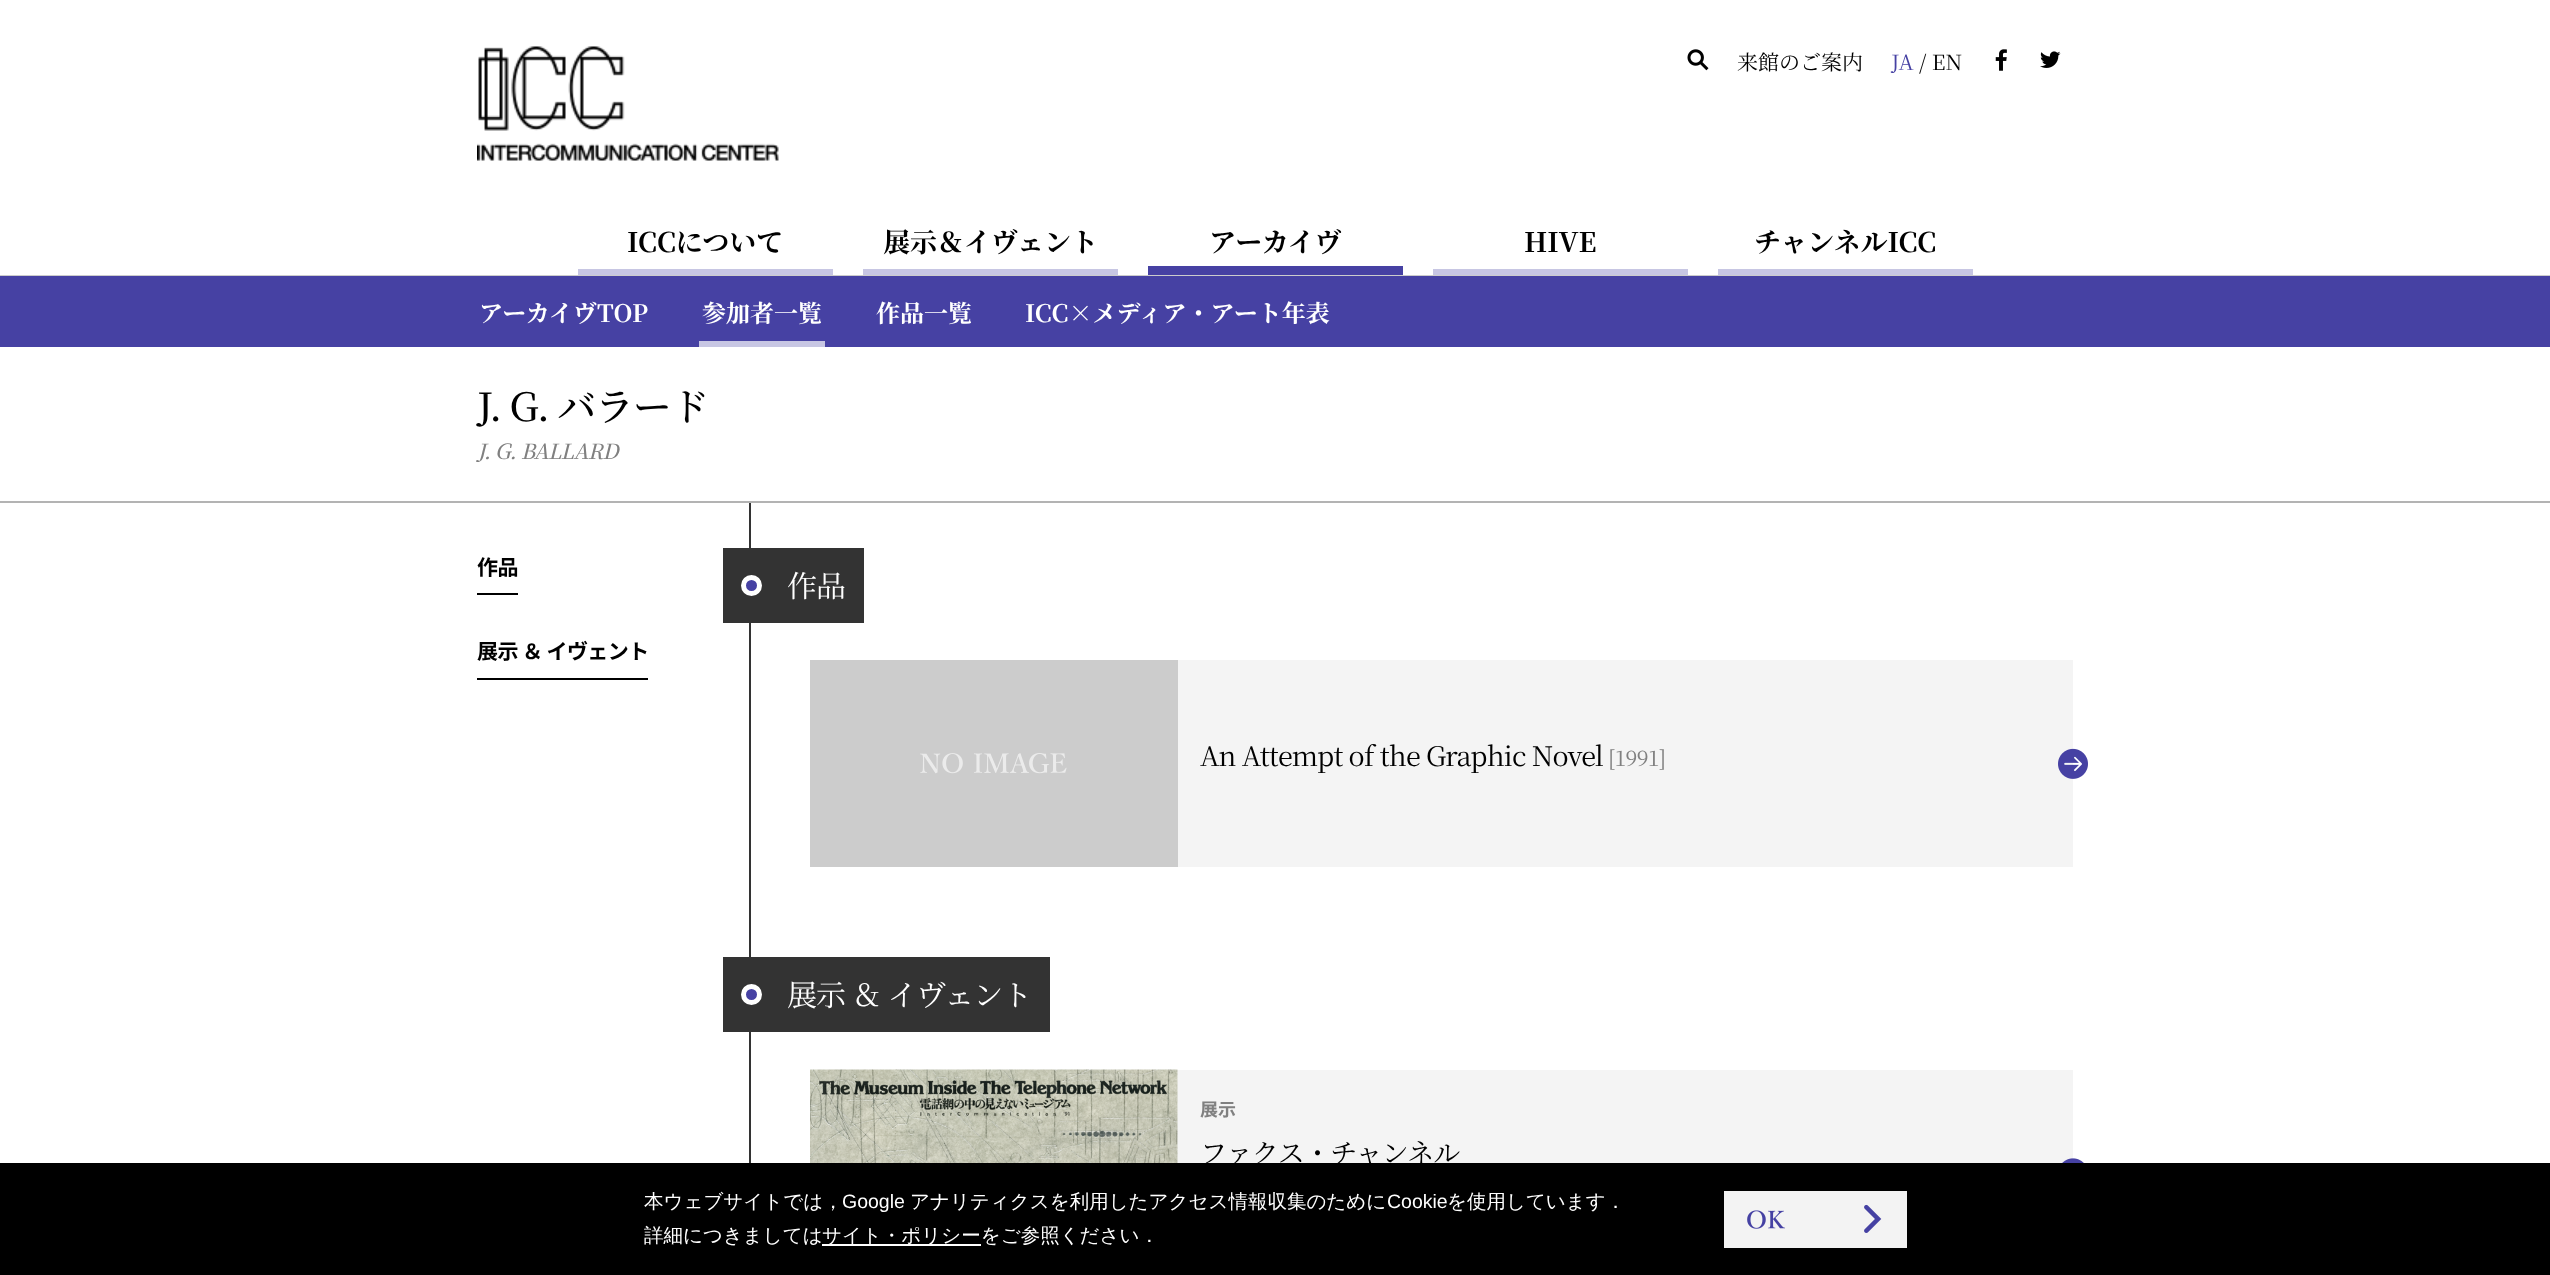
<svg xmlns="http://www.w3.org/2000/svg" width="2550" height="1275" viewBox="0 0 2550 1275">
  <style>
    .t1 { font: 21px Noto Serif JP; fill: #000; }
    .t2 { font: 21px Noto Serif JP; fill: #4641a3; }
    .t3 { font: bold 27px Noto Serif JP; fill: #000; }
    .t4 { font: bold 24px Noto Serif JP; fill: #fff; }
    .t5 { font: 500 39px Noto Serif JP; letter-spacing: -1.25px; fill: #000; }
    .t6 { font: italic 500 21px Noto Serif JP; letter-spacing: -0.6px; fill: #808080; }
    .t7 { font: bold 21px Noto Sans JP; letter-spacing: -0.6px; fill: #000; }
    .t8 { font: 30px Noto Serif JP; letter-spacing: -1px; fill: #fff; }
    .t9 { font: 27px Noto Serif JP; letter-spacing: -0.8px; fill: #000; }
    .t10 { font: 21.5px Noto Serif JP; letter-spacing: -0.8px; fill: #808080; }
    .t11 { font: bold 18px Noto Sans JP; fill: #808080; }
    .t12 { font: 500 19.5px WenQuanYi Zen Hei; fill: #fff; }
    .t13 { font: 19.5px Liberation Sans; fill: #fff; }
  </style>
  <rect width="100%" height="100%" fill="#fff"/>
  <image x="477" y="46" width="302" height="115" href="images/1.png"/>
  <image x="1687" y="49" width="22" height="22" href="images/2.png"/>
  <text x="1737" y="70" class="t1">来館のご案内</text>
  <text x="1891" y="70" class="t2">JA</text>
  <text x="1919" y="70" class="t1">/ EN</text>
  <image x="1995" y="49" width="12" height="22" href="images/3.png"/>
  <image x="2040" y="51" width="21" height="17" href="images/4.png"/>
  <rect x="0" y="275" width="2550" height="1" fill="#ccc"/>
  <text x="627" y="252" class="t3">ICCについて</text>
  <rect x="578" y="269" width="255" height="6" fill="#c7c6e3"/>
  <text x="883" y="252" class="t3">展示＆イヴェント</text>
  <rect x="863" y="269" width="255" height="6" fill="#c7c6e3"/>
  <text x="1209" y="252" class="t3">アーカイヴ</text>
  <rect x="1148" y="266" width="255" height="9" fill="#4641a3"/>
  <text x="1524" y="252" class="t3">HIVE</text>
  <rect x="1433" y="269" width="255" height="6" fill="#c7c6e3"/>
  <text x="1754" y="252" class="t3">チャンネルICC</text>
  <rect x="1718" y="269" width="255" height="6" fill="#c7c6e3"/>
  <rect x="0" y="276" width="2550" height="71" fill="#4641a3"/>
  <text x="479" y="322" class="t4">アーカイヴTOP</text>
  <rect x="699" y="341" width="126" height="6" fill="#c7c6e3"/>
  <text x="702" y="322" class="t4">参加者一覧</text>
  <text x="876" y="322" class="t4">作品一覧</text>
  <text x="1025" y="322" class="t4">ICC×メディア・アート年表</text>
  <rect x="0" y="501" width="2550" height="2" fill="#b3b3b3"/>
  <text x="477" y="421" class="t5">J. G. バラード</text>
  <text x="477" y="459" class="t6">J. G. BALLARD</text>
  <rect x="477" y="593" width="41" height="2" fill="#000"/>
  <text x="477" y="575" class="t7">作品</text>
  <rect x="477" y="678" width="171" height="2" fill="#000"/>
  <text x="477" y="659" class="t7">展示 ＆ イヴェント</text>
  <rect x="749" y="503" width="2" height="660" fill="#333"/>
  <rect x="723" y="548" width="141" height="75" fill="#333"/>
  <circle cx="751.5" cy="585.5" r="8" fill="#4641a3" stroke="#fff" stroke-width="5"/>
  <text x="787" y="597" class="t8">作品</text>
  <rect x="1178" y="660" width="895" height="207" fill="#f4f4f4"/>
  <rect x="810" y="660" width="368" height="207" fill="#ccc"/>
  <image x="920" y="753" width="147" height="21" href="images/5.png"/>
  <text x="1200" y="766" class="t9">An Attempt of the Graphic Novel</text>
  <text x="1608" y="766" class="t10">[1991]</text>
  <image x="2058" y="748" width="30" height="31" href="images/6.png"/>
  <rect x="723" y="957" width="327" height="75" fill="#333"/>
  <circle cx="751.5" cy="994.5" r="8" fill="#4641a3" stroke="#fff" stroke-width="5"/>
  <text x="787" y="1006" class="t8">展示 ＆ イヴェント</text>
  <rect x="1177" y="1070" width="896" height="93" fill="#f4f4f4"/>
  <image x="810" y="1069" width="368" height="94" href="images/7.png"/>
  <text x="1200" y="1116" class="t11">展示</text>
  <text x="1200" y="1163" class="t9">ファクス・チャンネル</text>
  <image x="2062" y="1158" width="22" height="5" href="images/8.png"/>
  <rect x="0" y="1163" width="2550" height="112" fill="#000"/>
  <text x="644" y="1208" class="t12">本ウェブサイトでは，</text>
  <text x="842" y="1208" class="t13">Google</text>
  <text x="910" y="1208" class="t12">アナリティクスを利用したアクセス情報収集のために</text>
  <text x="1387" y="1208" class="t13">Cookie</text>
  <text x="1447" y="1208" class="t12">を使用しています．</text>
  <text x="644" y="1242" class="t12">詳細につきましては</text>
  <rect x="822" y="1244" width="159" height="2" fill="#fff"/>
  <text x="822" y="1242" class="t12">サイト・ポリシーをご参照ください．</text>
  <image x="1724" y="1191" width="183" height="57" href="images/9.png"/>
</svg>
